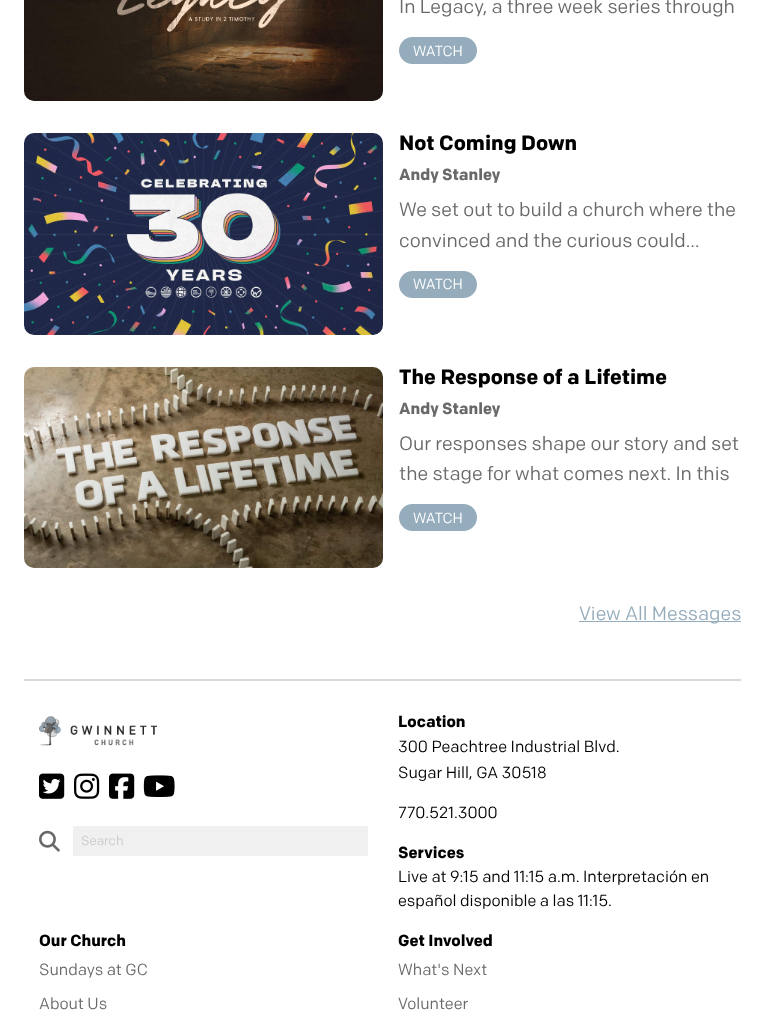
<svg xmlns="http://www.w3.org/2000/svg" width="765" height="1016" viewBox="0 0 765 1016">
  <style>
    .t1 { font: 19.25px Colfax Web; fill: #696969; }
    .t2 { font: 14.5px Colfax Web; fill: #fff; }
    .t3 { font: bold 20.75px Colfax Web; fill: #000; }
    .t4 { font: bold 16px Colfax Web; fill: #696969; }
    .t5 { font: 19.25px Colfax Web; fill: #95acbc; }
    .t6 { font: 13px Colfax Web; fill: #cacaca; }
    .t7 { font: bold 16px Colfax Web; fill: #000; }
    .t8 { font: 16px Colfax Web; fill: #000; }
    .t9 { font: 16px Colfax Web; fill: #696969; }
  </style>
  <rect width="100%" height="100%" fill="#fff"/>
  <image x="24" y="0" width="359" height="101" href="images/1.png"/>
  <text x="399" y="13" class="t1">In Legacy, a three week series through</text>
  <rect x="399" y="37" width="78" height="27" rx="13.5" fill="#95acbc"/>
  <text x="413" y="56" class="t2">WATCH</text>
  <image x="24" y="133" width="359" height="202" href="images/2.png"/>
  <text x="399" y="150" class="t3">Not Coming Down</text>
  <text x="399" y="180" class="t4">Andy Stanley</text>
  <text x="399" y="216" class="t1">We set out to build a church where the</text>
  <text x="399" y="247" class="t1">convinced and the curious could…</text>
  <rect x="399" y="271" width="78" height="27" rx="13.5" fill="#95acbc"/>
  <text x="413" y="289" class="t2">WATCH</text>
  <image x="24" y="367" width="359" height="201" href="images/3.png"/>
  <text x="399" y="384" class="t3">The Response of a Lifetime</text>
  <text x="399" y="414" class="t4">Andy Stanley</text>
  <text x="399" y="450" class="t1">Our responses shape our story and set</text>
  <text x="399" y="480" class="t1">the stage for what comes next. In this</text>
  <rect x="399" y="504" width="78" height="27" rx="13.5" fill="#95acbc"/>
  <text x="413" y="523" class="t2">WATCH</text>
  <rect x="579" y="621" width="162" height="1" fill="#95acbc"/>
  <text x="579" y="620" class="t5">View All Messages</text>
  <rect x="24" y="679" width="717" height="2" fill="#d8d8d8"/>
  <image x="39" y="716" width="118" height="30" href="images/4.png"/>
  <image x="39" y="773" width="26" height="26" href="images/5.png"/>
  <image x="74" y="773" width="26" height="26" href="images/6.png"/>
  <image x="109" y="773" width="26" height="26" href="images/7.png"/>
  <image x="143" y="775" width="32" height="22" href="images/8.png"/>
  <image x="39" y="830" width="21" height="22" href="images/9.png"/>
  <rect x="73" y="826" width="295" height="30" fill="#f0f0f0"/>
  <text x="81" y="845" class="t6">Search</text>
  <text x="398" y="727" class="t7">Location</text>
  <text x="398" y="752" class="t8">300 Peachtree Industrial Blvd.</text>
  <text x="398" y="778" class="t8">Sugar Hill, GA 30518</text>
  <text x="398" y="818" class="t8">770.521.3000</text>
  <text x="398" y="858" class="t7">Services</text>
  <text x="398" y="882" class="t8">Live at 9:15 and 11:15 a.m. Interpretación en</text>
  <text x="398" y="906" class="t8">español disponible a las 11:15.</text>
  <text x="39" y="946" class="t7">Our Church</text>
  <text x="39" y="975" class="t9">Sundays at GC</text>
  <text x="39" y="1009" class="t9">About Us</text>
  <text x="398" y="946" class="t7">Get Involved</text>
  <text x="398" y="975" class="t9">What's Next</text>
  <text x="398" y="1009" class="t9">Volunteer</text>
</svg>
